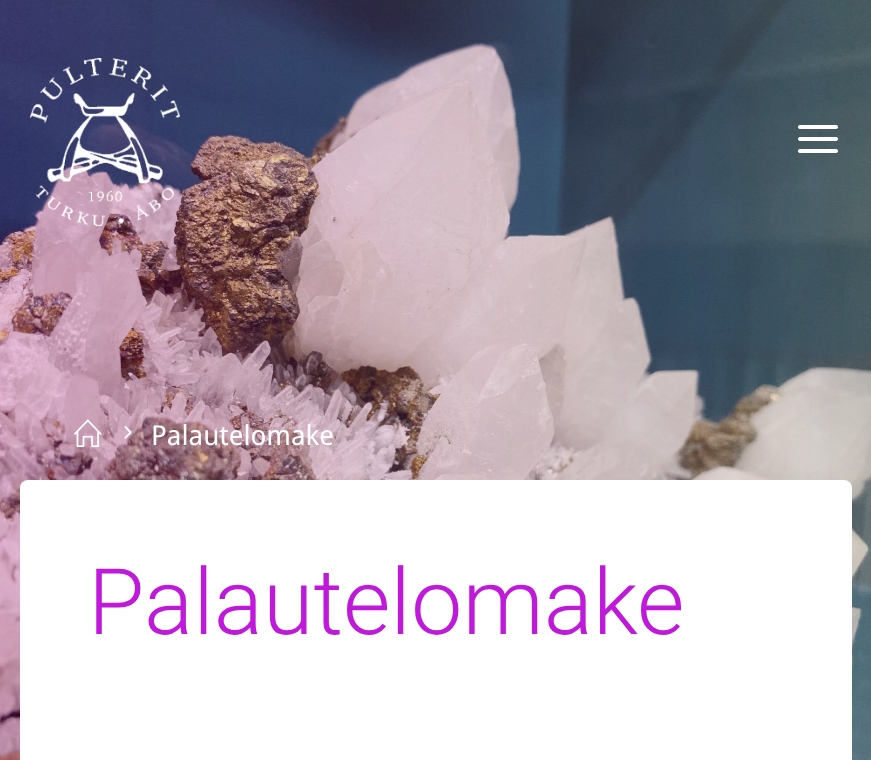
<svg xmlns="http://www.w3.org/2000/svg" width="871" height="760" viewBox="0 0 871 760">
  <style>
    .t1 { font: 27.5px Droid Sans; fill: #fff; }
    .t2 { font: 300 91.75px Roboto; fill: #bf19da; }
  </style>
  <rect width="100%" height="100%" fill="#fff"/>
  <image x="0" y="0" width="871" height="760" href="images/1.png"/>
  <image x="30" y="58" width="150" height="168" href="images/2.png"/>
  <image x="798" y="125" width="40" height="28" href="images/3.png"/>
  <image x="74" y="419" width="28" height="29" href="images/4.png"/>
  <image x="124" y="426" width="8" height="13" href="images/5.png"/>
  <text x="151" y="445" class="t1">Palautelomake</text>
  <rect x="20" y="480" width="832" height="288" rx="8" fill="#fff"/>
  <text x="88" y="634" class="t2">Palautelomake</text>
</svg>
